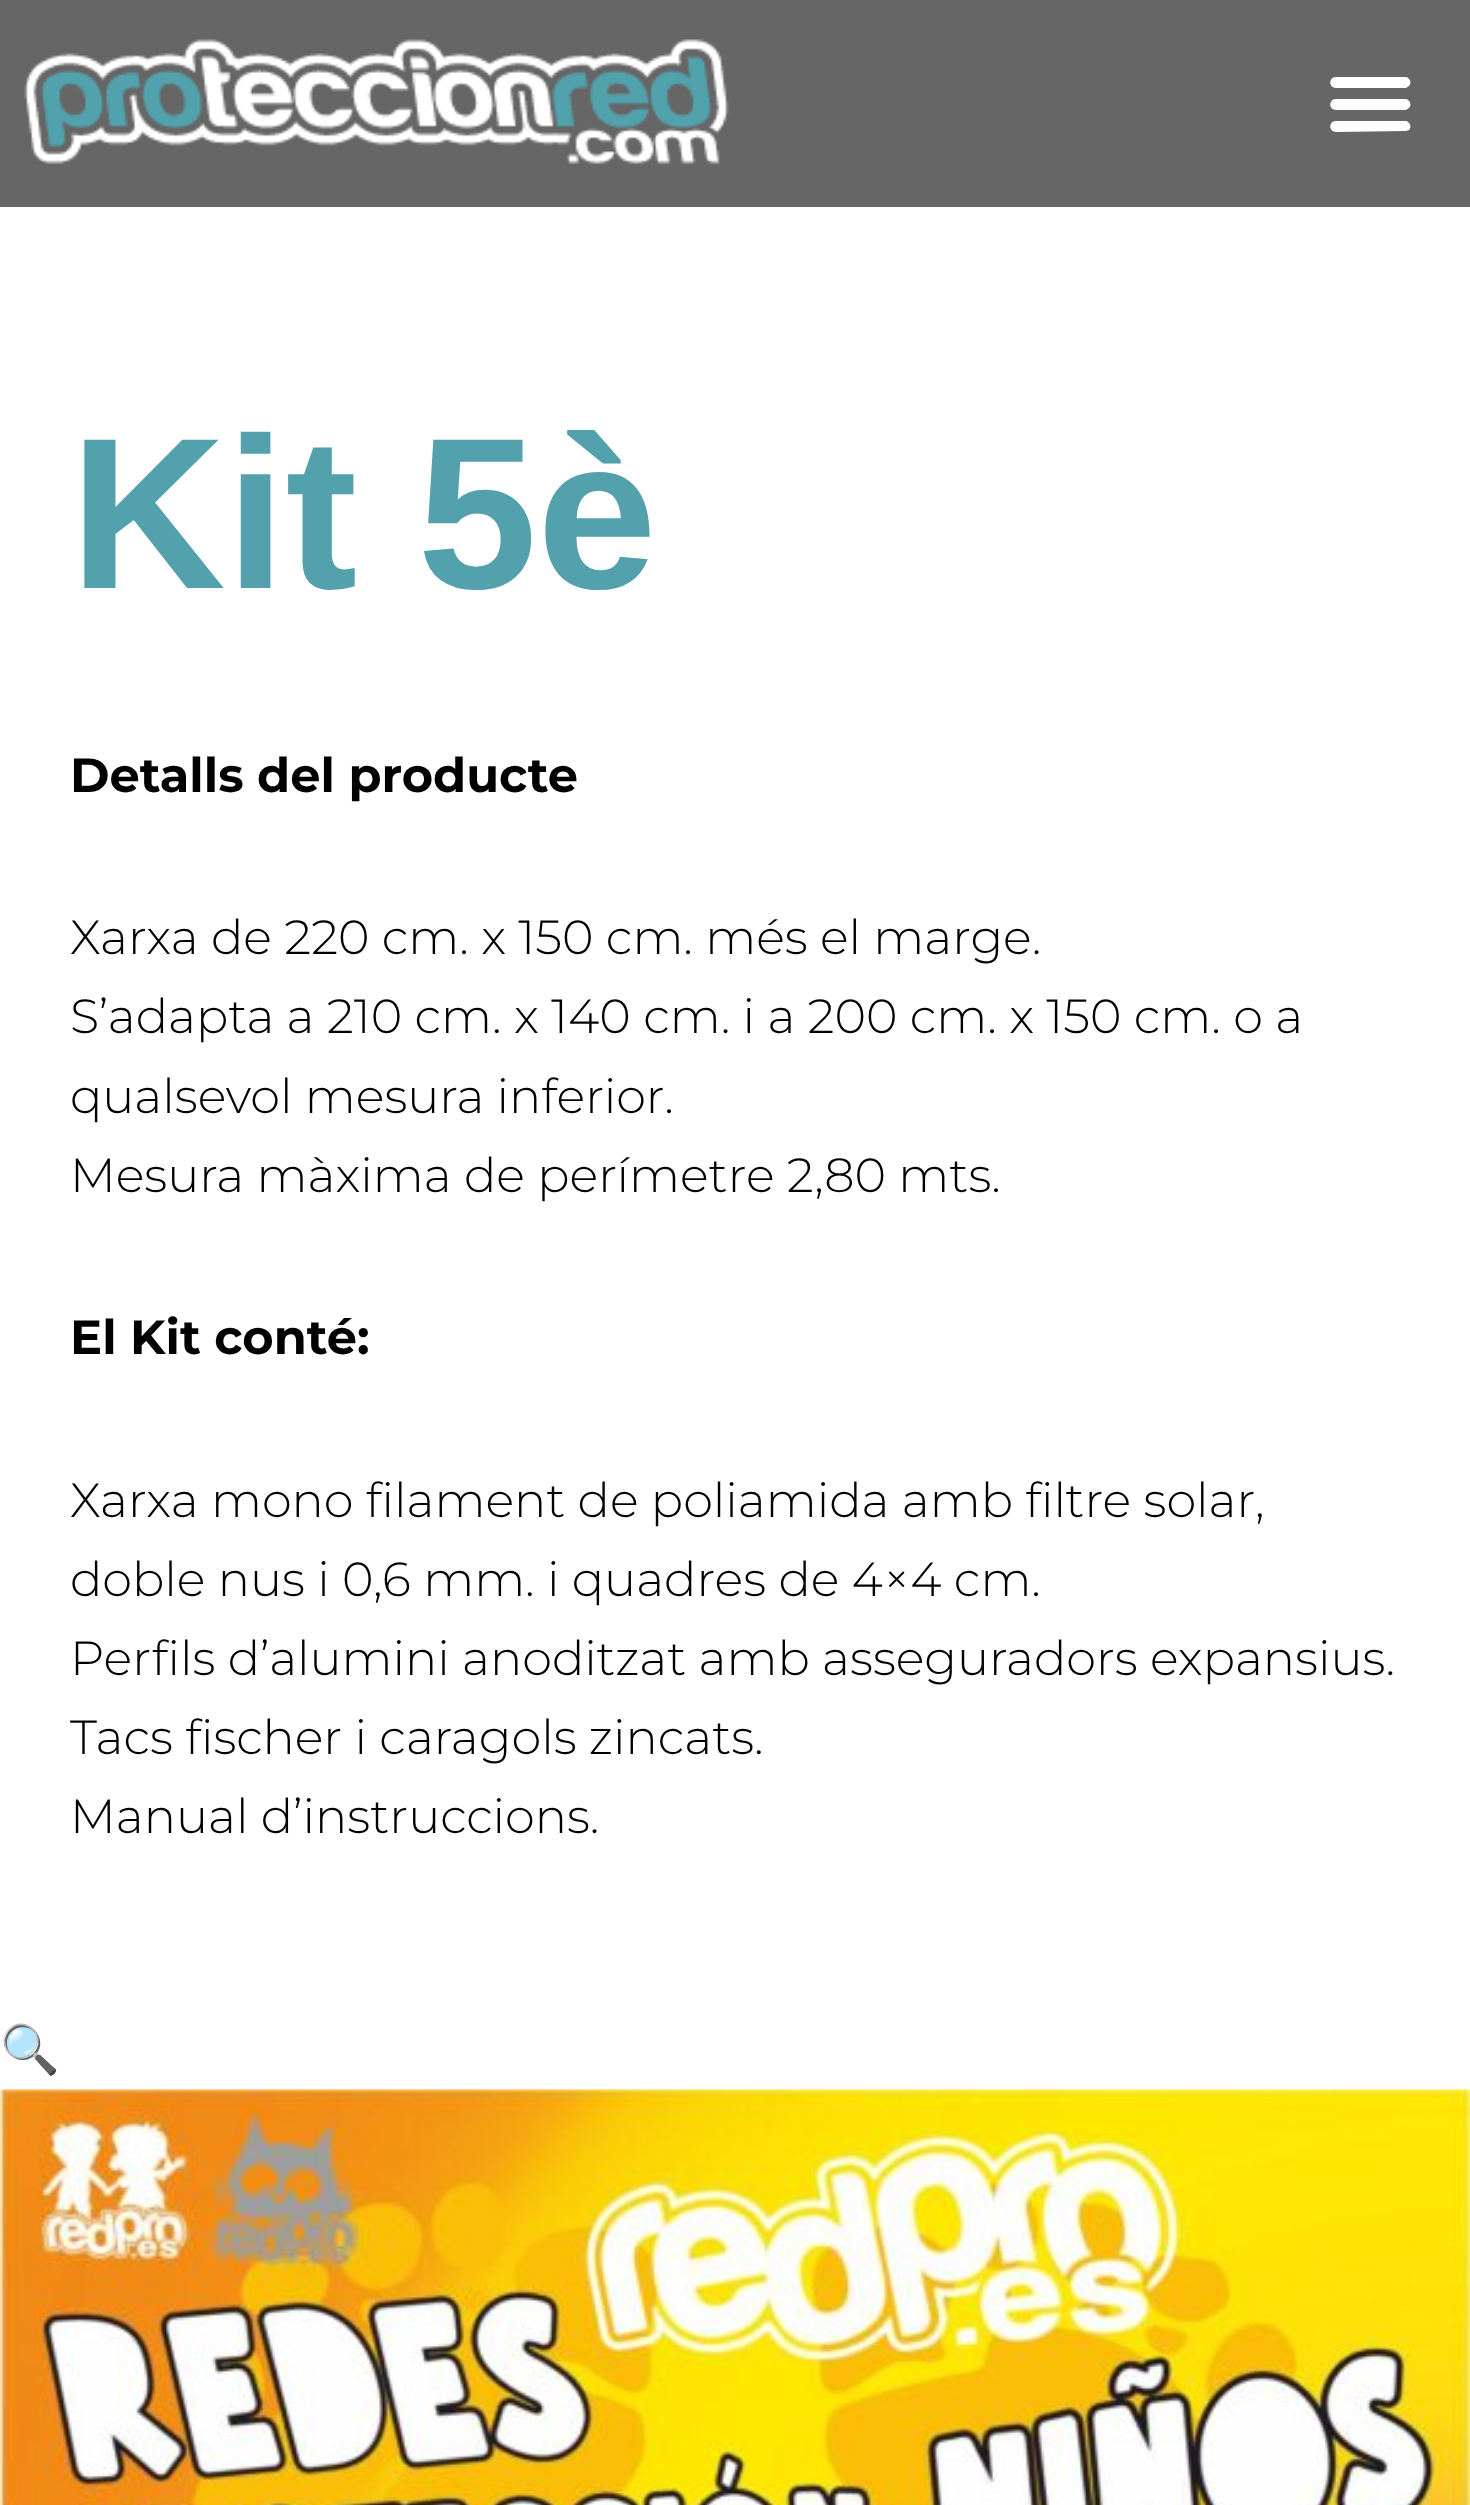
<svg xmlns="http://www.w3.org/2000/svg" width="1470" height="2505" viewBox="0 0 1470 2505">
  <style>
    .t1 { font: bold 215.5px Liberation Sans; fill: #52a1ad; }
    .t2 { font: bold 47.9px Montserrat; fill: #000; }
    .t3 { font: 300 47.9px Montserrat; fill: #000; }
    .t4 { font: 47.9px Noto Color Emoji; fill: #0170b9; }
  </style>
  <rect width="100%" height="100%" fill="#fff"/>
  <rect x="0" y="0" width="1470" height="207" fill="#666"/>
  <image x="24" y="39" width="705" height="126" href="images/1.png"/>
  <path d="M1336 88H1406L1409 86C1412 83 1410 78 1406 77H1335C1328 78 1329 88 1336 88ZM1336 110H1406L1409 108C1412 105 1410 100 1406 99H1335C1328 100 1329 110 1336 110ZM1336 132L1406 131L1409 130C1412 127 1410 122 1406 121H1335C1328 122 1329 132 1336 132Z" fill="#fff"/>
  <text x="70" y="588" class="t1">Kit 5è</text>
  <text x="70" y="792" class="t2">Detalls del producte</text>
  <text x="70" y="954" class="t3">Xarxa de 220 cm. x 150 cm. més el marge.</text>
  <text x="70" y="1033" class="t3">S’adapta a 210 cm. x 140 cm. i a 200 cm. x 150 cm. o a</text>
  <text x="70" y="1113" class="t3">qualsevol mesura inferior.</text>
  <text x="70" y="1192" class="t3">Mesura màxima de perímetre 2,80 mts.</text>
  <text x="70" y="1354" class="t2">El Kit conté:</text>
  <text x="70" y="1517" class="t3">Xarxa mono filament de poliamida amb filtre solar,</text>
  <text x="70" y="1596" class="t3">doble nus i 0,6 mm. i quadres de 4×4 cm.</text>
  <text x="70" y="1675" class="t3">Perfils d’alumini anoditzat amb asseguradors expansius.</text>
  <text x="70" y="1754" class="t3">Tacs fischer i caragols zincats.</text>
  <text x="70" y="1833" class="t3">Manual d’instruccions.</text>
  <text x="0" y="2066" class="t4">🔍</text>
  <image x="0" y="2089" width="1470" height="416" href="images/2.png"/>
</svg>
